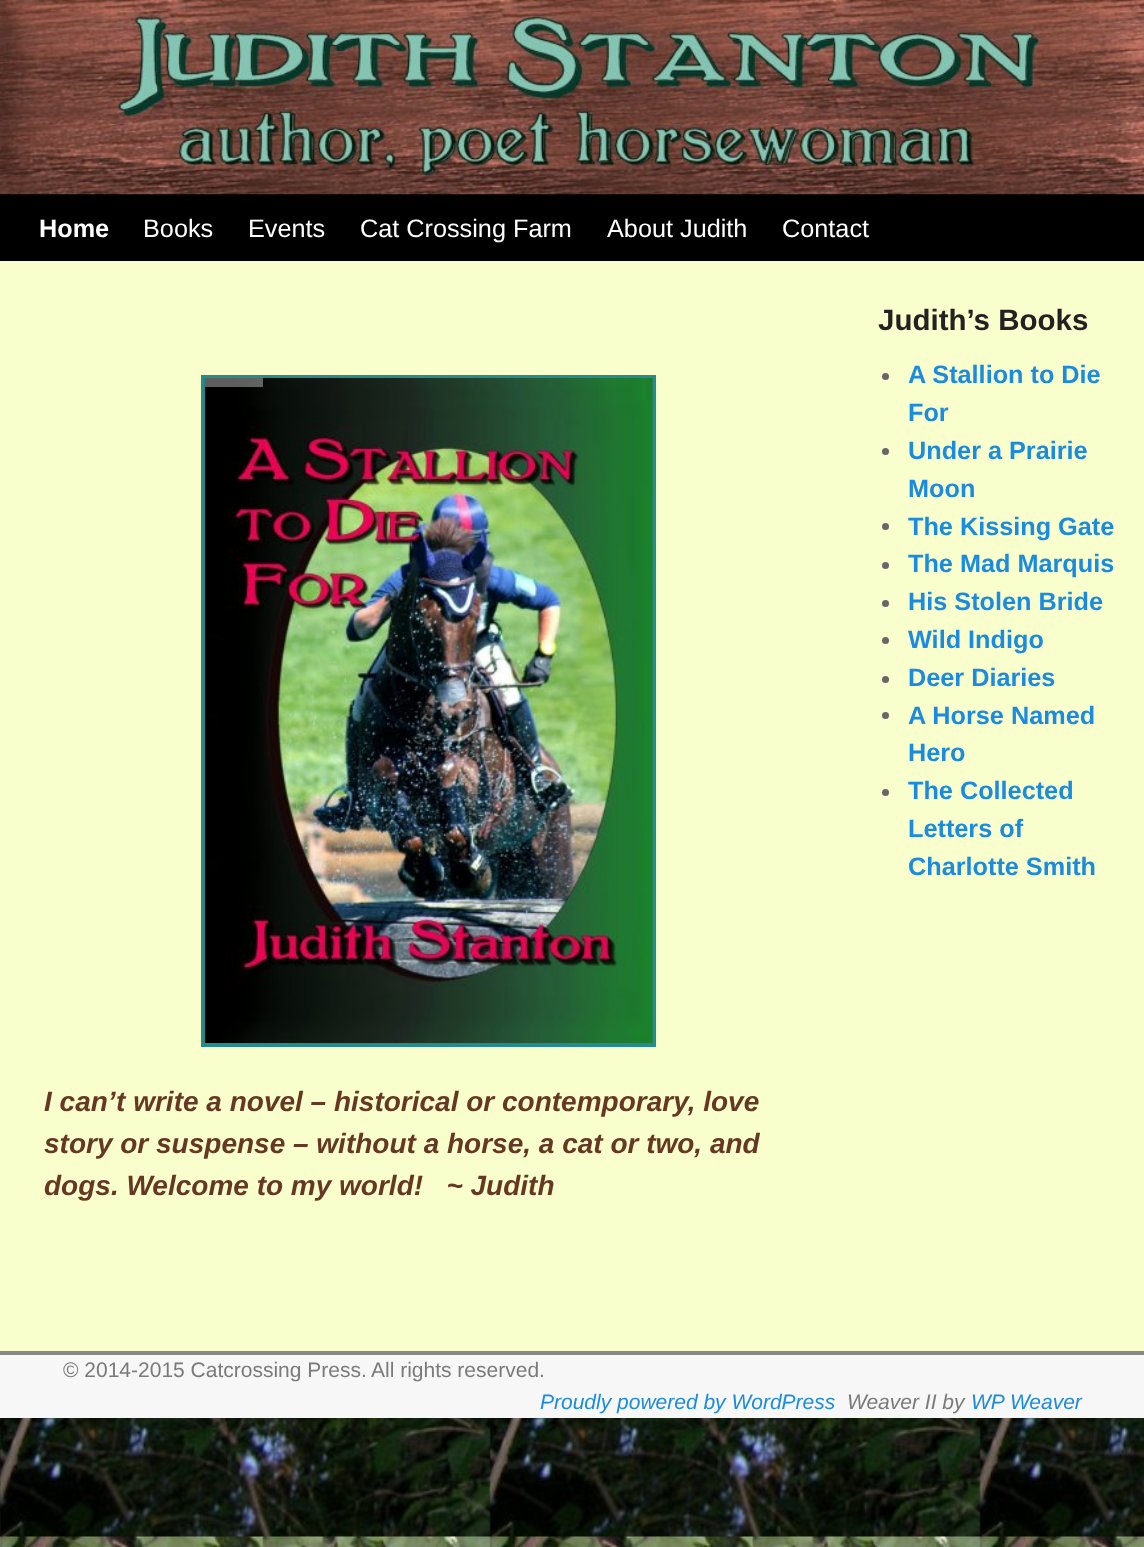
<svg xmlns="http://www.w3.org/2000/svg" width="1144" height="1547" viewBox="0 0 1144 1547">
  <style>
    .t1 { font: bold 25.25px Liberation Sans; fill: #fff; }
    .t2 { font: 25.25px Liberation Sans; fill: #fff; }
    .t3 { font: bold 29.5px Liberation Sans; fill: #222; }
    .t4 { font: bold 25.25px Liberation Sans; fill: #1b8be0; }
    .t5 { font: italic bold 28px Liberation Sans; fill: #663823; }
    .t6 { font: 21px Liberation Sans; fill: #7a7a7a; }
    .t7 { font: italic 21px Liberation Sans; fill: #1b8be0; }
    .t8 { font: italic 21px Liberation Sans; fill: #7a7a7a; }
  </style>
  <rect width="100%" height="100%" fill="#fff"/>
  <image x="0" y="1418" width="1144" height="129" href="images/1.png"/>
  <rect x="0" y="261" width="1144" height="1090" fill="#f8ffcc"/>
  <rect x="0" y="194" width="1144" height="67" fill="#000"/>
  <image x="0" y="0" width="1144" height="195" href="images/2.png"/>
  <text x="39" y="237" class="t1">Home</text>
  <text x="143" y="237" class="t2">Books</text>
  <text x="248" y="237" class="t2">Events</text>
  <text x="360" y="237" class="t2">Cat Crossing Farm</text>
  <text x="607" y="237" class="t2">About Judith</text>
  <text x="782" y="237" class="t2">Contact</text>
  <text x="878" y="330" class="t3">Judith’s Books</text>
  <circle cx="885.5" cy="376.5" r="3.5" fill="#666"/>
  <text x="908" y="383" class="t4">A Stallion to Die</text>
  <text x="908" y="421" class="t4">For</text>
  <circle cx="885.5" cy="451.5" r="3.5" fill="#666"/>
  <text x="908" y="459" class="t4">Under a Prairie</text>
  <text x="908" y="497" class="t4">Moon</text>
  <circle cx="885.5" cy="526.5" r="3.5" fill="#666"/>
  <text x="908" y="535" class="t4">The Kissing Gate</text>
  <circle cx="885.5" cy="565.5" r="3.5" fill="#666"/>
  <text x="908" y="572" class="t4">The Mad Marquis</text>
  <circle cx="885.5" cy="603.5" r="3.5" fill="#666"/>
  <text x="908" y="610" class="t4">His Stolen Bride</text>
  <circle cx="885.5" cy="640.5" r="3.5" fill="#666"/>
  <text x="908" y="648" class="t4">Wild Indigo</text>
  <circle cx="885.5" cy="679.5" r="3.5" fill="#666"/>
  <text x="908" y="686" class="t4">Deer Diaries</text>
  <circle cx="885.5" cy="715.5" r="3.5" fill="#666"/>
  <text x="908" y="724" class="t4">A Horse Named</text>
  <text x="908" y="761" class="t4">Hero</text>
  <circle cx="885.5" cy="792.5" r="3.5" fill="#666"/>
  <text x="908" y="799" class="t4">The Collected</text>
  <text x="908" y="837" class="t4">Letters of</text>
  <text x="908" y="875" class="t4">Charlotte Smith</text>
  <rect x="203" y="377" width="451" height="668" fill="none" stroke="#258b8c" stroke-width="4"/>
  <image x="204" y="378" width="449" height="665" href="images/3.png"/>
  <rect x="205" y="378" width="58" height="9" fill="#bbbbbb80"/>
  <text x="44" y="1111" class="t5">I can’t write a novel – historical or contemporary, love</text>
  <text x="44" y="1153" class="t5">story or suspense – without a horse, a cat or two, and</text>
  <text x="44" y="1195" class="t5" xml:space="preserve">dogs. Welcome to my world!   ~ Judith</text>
  <rect x="0" y="1355" width="1144" height="63" fill="#f7f7f7"/>
  <rect x="0" y="1351" width="1144" height="4" fill="#888"/>
  <text x="63" y="1377" class="t6">© 2014-2015 Catcrossing Press.</text>
  <text x="371" y="1377" class="t6">All rights reserved.</text>
  <text x="540" y="1409" class="t7">Proudly powered by WordPress</text>
  <text x="847" y="1409" class="t8">Weaver II by</text>
  <text x="971" y="1409" class="t7">WP Weaver</text>
</svg>
